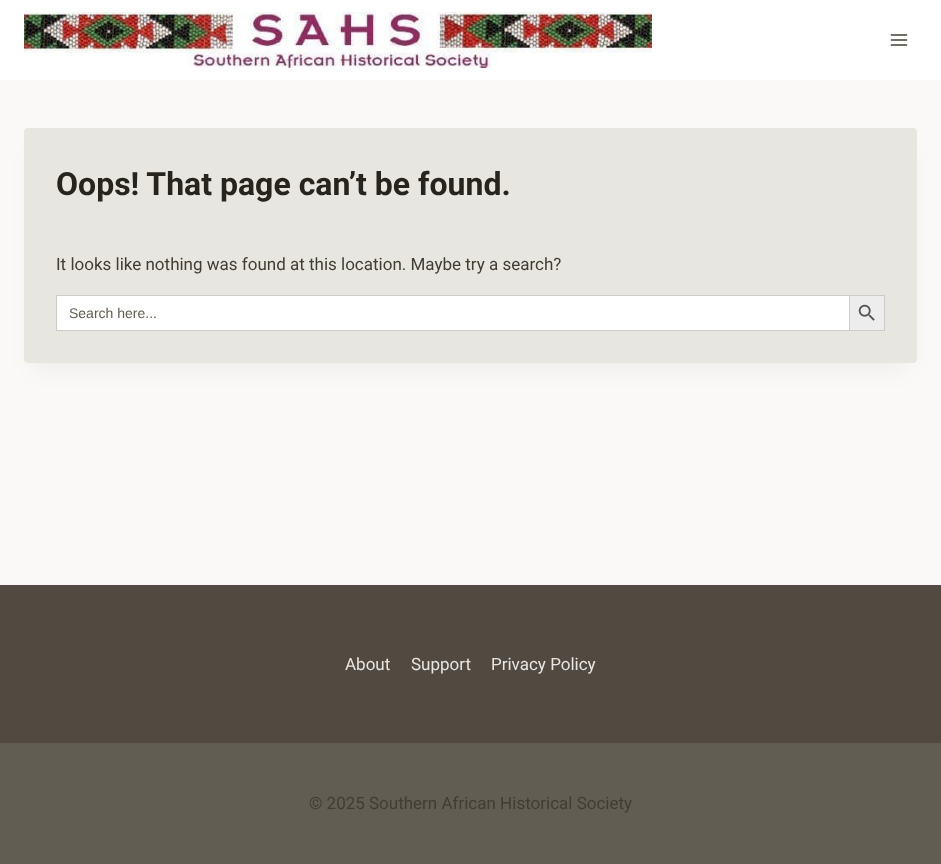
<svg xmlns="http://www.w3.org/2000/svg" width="941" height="864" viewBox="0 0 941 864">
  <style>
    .t1 { font: bold 32px Roboto; fill: #27241d; }
    .t2 { font: 17px Roboto; fill: #423d33; }
    .t3 { font: 14px Liberation Sans; fill: #625d52; }
    .t4 { font: 17px Roboto; fill: #e8e6e1; }
  </style>
  <rect width="100%" height="100%" fill="#faf9f7"/>
  <rect x="0" y="0" width="941" height="80" fill="#fff"/>
  <image x="24" y="12" width="628" height="56" href="images/1.png"/>
  <image x="890" y="34" width="18" height="12" href="images/2.png"/>
  <rect x="34" y="153" width="873" height="215" fill="#0000000d" filter="blur(12.5px)"/>
  <rect x="24" y="128" width="893" height="235" rx="4" fill="#e8e6e1"/>
  <text x="56" y="195" class="t1">Oops! That page can’t be found.</text>
  <text x="56" y="270" class="t2">It looks like nothing was found at this location. Maybe try a search?</text>
  <rect x="57" y="296" width="792" height="34" fill="#fff"/>
  <rect x="56" y="295" width="793" height="1" fill="#ccc"/>
  <rect x="56" y="330" width="793" height="1" fill="#ccc"/>
  <rect x="56" y="295" width="1" height="36" fill="#ccc"/>
  <text x="69" y="318" class="t3">Search here...</text>
  <rect x="849.5" y="295.5" width="35" height="35" fill="#ededed" stroke="#ccc"/>
  <image x="858" y="304" width="17" height="17" href="images/3.png"/>
  <rect x="0" y="743" width="941" height="121" fill="#625d52"/>
  <rect x="0" y="585" width="941" height="158" fill="#504a40"/>
  <text x="345" y="670" class="t4">About</text>
  <text x="411" y="670" class="t4">Support</text>
  <text x="491" y="670" class="t4">Privacy Policy</text>
  <text x="309" y="809" class="t2">© 2025 Southern African Historical Society</text>
</svg>
